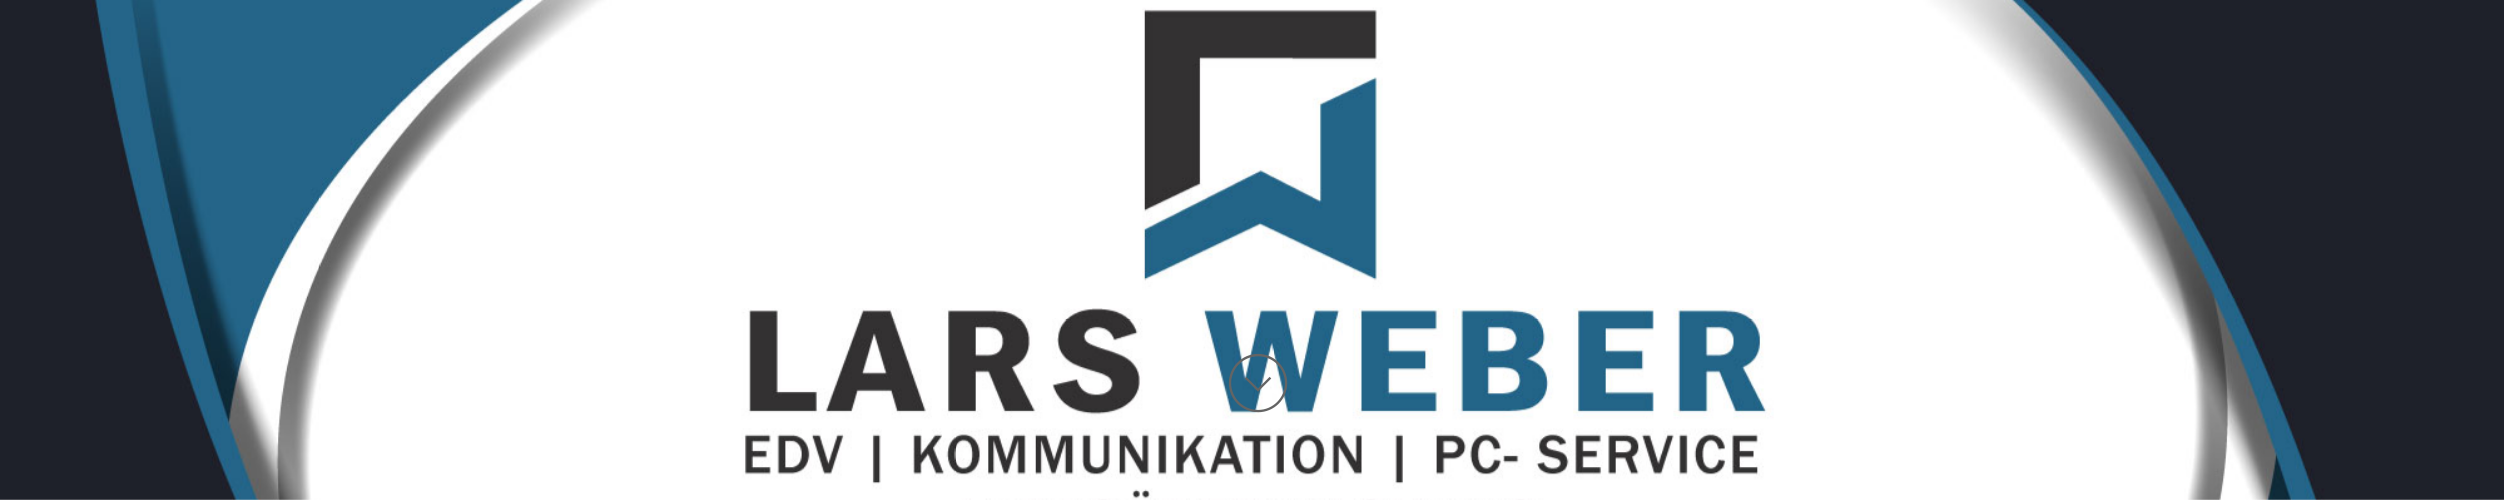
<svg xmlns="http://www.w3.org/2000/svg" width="2504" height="500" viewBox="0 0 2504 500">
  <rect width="100%" height="100%" fill="#fff"/>
  <image x="0" y="0" width="2504" height="500" href="images/1.png"/>
  <image x="1228" y="353" width="60" height="60" href="images/2.png"/>
</svg>
